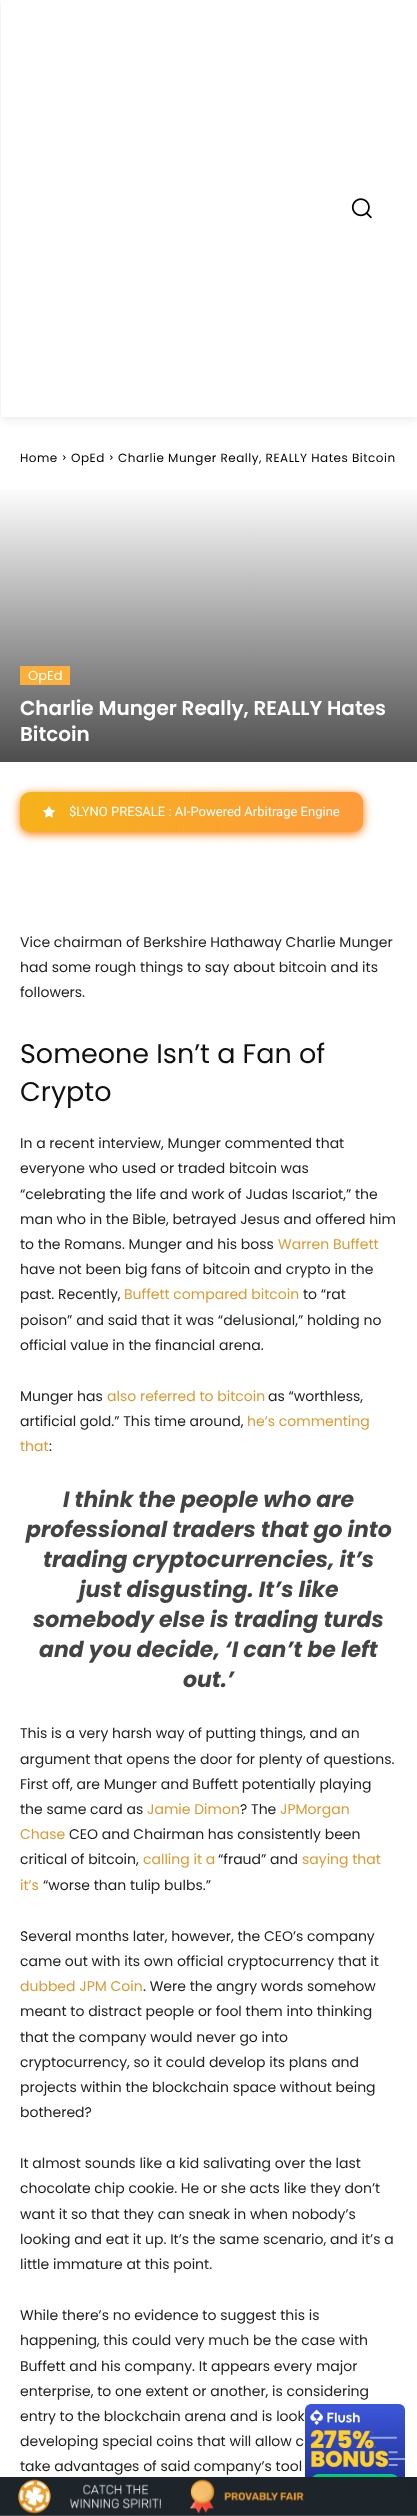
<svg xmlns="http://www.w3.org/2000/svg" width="417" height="2516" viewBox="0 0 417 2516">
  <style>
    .t1 { font: 12px Poppins; letter-spacing: 0.5px; fill: #000; }
    .t2 { font: 13px Poppins; fill: #fff; }
    .t3 { font: 600 20px Poppins; fill: #fff; }
    .t4 { font: 13px Roboto; fill: #fff; }
    .t5 { font: 14px Poppins; fill: #222; }
    .t6 { font: 27px Poppins; fill: #111; }
    .t7 { font: 14px Poppins; fill: #d93; }
    .t8 { font: italic bold 22px Poppins; fill: #444; }
  </style>
  <defs>
    <clipPath id="clip1"><path d="M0 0H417V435H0ZM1 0H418V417H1Z" clip-rule="evenodd"/></clipPath>
    <linearGradient id="g1" gradientUnits="userSpaceOnUse" x1="209" y1="762" x2="209" y2="485"><stop offset="0" stop-color="#4d4d4d"/><stop offset="1" stop-color="#fff"/></linearGradient>
    <linearGradient id="g2" gradientUnits="userSpaceOnUse" x1="329" y1="891" x2="54" y2="733"><stop offset="0" stop-color="#fe9a3d"/><stop offset="1" stop-color="#f5b31a"/><stop offset="1" stop-color="#e5a819"/></linearGradient>
  </defs>
  <rect width="100%" height="100%" fill="#fff"/>
  <image x="351" y="198" width="21" height="21" href="images/1.png"/>
  <g clip-path="url(#clip1)">
    <rect x="1" y="2" width="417" height="417" fill="#00000017" filter="blur(5px)"/>
  </g>
  <text x="20" y="462" class="t1">Home</text>
  <image x="63" y="455" width="3" height="5" href="images/2.png"/>
  <text x="71" y="462" class="t1">OpEd</text>
  <image x="110" y="455" width="3" height="5" href="images/2.png"/>
  <text x="118" y="462" class="t1">Charlie Munger Really, REALLY Hates Bitcoin</text>
  <rect x="0" y="489" width="417" height="273" fill="url(#g1)"/>
  <rect x="20" y="666" width="50" height="19" fill="#fbb03b"/>
  <text x="28" y="680" class="t2">OpEd</text>
  <text x="20" y="715" class="t3">Charlie Munger Really, REALLY Hates</text>
  <text x="20" y="741" class="t3">Bitcoin</text>
  <rect x="20" y="794" width="343" height="40" rx="10" fill="#fc7802" filter="blur(5px)"/>
  <rect x="20" y="792" width="343" height="40" rx="10" fill="url(#g2)"/>
  <image x="43" y="806" width="12" height="12" href="images/3.png"/>
  <text x="69" y="816" class="t4">$LYNO PRESALE : AI-Powered Arbitrage Engine</text>
  <text x="20" y="947" class="t5">Vice chairman of Berkshire Hathaway Charlie Munger</text>
  <text x="20" y="972" class="t5">had some rough things to say about bitcoin and its</text>
  <text x="20" y="997" class="t5">followers.</text>
  <text x="20" y="1063" class="t6">Someone Isn’t a Fan of</text>
  <text x="20" y="1101" class="t6">Crypto</text>
  <text x="20" y="1148" class="t5">In a recent interview, Munger commented that</text>
  <text x="20" y="1173" class="t5">everyone who used or traded bitcoin was</text>
  <text x="20" y="1199" class="t5">“celebrating the life and work of Judas Iscariot,” the</text>
  <text x="20" y="1224" class="t5">man who in the Bible, betrayed Jesus and offered him</text>
  <text x="20" y="1249" class="t5">to the Romans. Munger and his boss</text>
  <text x="278" y="1249" class="t7">Warren Buffett</text>
  <text x="20" y="1274" class="t5">have not been big fans of bitcoin and crypto in the</text>
  <text x="20" y="1299" class="t5">past. Recently,</text>
  <text x="124" y="1299" class="t7">Buffett compared bitcoin</text>
  <text x="303" y="1299" class="t5">to “rat</text>
  <text x="20" y="1325" class="t5">poison” and said that it was “delusional,” holding no</text>
  <text x="20" y="1350" class="t5">official value in the financial arena.</text>
  <text x="20" y="1401" class="t5">Munger has</text>
  <text x="107" y="1401" class="t7">also referred to bitcoin</text>
  <text x="268" y="1401" class="t5">as “worthless,</text>
  <text x="20" y="1426" class="t5">artificial gold.” This time around,</text>
  <text x="247" y="1426" class="t7">he’s commenting</text>
  <text x="20" y="1451" class="t7">that</text>
  <text x="49" y="1451" class="t5">:</text>
  <text x="63" y="1507" class="t8">I think the people who are</text>
  <text x="26" y="1537" class="t8">professional traders that go into</text>
  <text x="43" y="1567" class="t8">trading cryptocurrencies, it’s</text>
  <text x="79" y="1597" class="t8">just disgusting. It’s like</text>
  <text x="33" y="1627" class="t8">somebody else is trading turds</text>
  <text x="39" y="1657" class="t8">and you decide, ‘I can’t be left</text>
  <text x="183" y="1687" class="t8">out.’</text>
  <text x="20" y="1738" class="t5">This is a very harsh way of putting things, and an</text>
  <text x="20" y="1764" class="t5">argument that opens the door for plenty of questions.</text>
  <text x="20" y="1789" class="t5">First off, are Munger and Buffett potentially playing</text>
  <text x="20" y="1814" class="t5">the same card as</text>
  <text x="147" y="1814" class="t7">Jamie Dimon</text>
  <text x="240" y="1814" class="t5">? The</text>
  <text x="280" y="1814" class="t7">JPMorgan</text>
  <text x="20" y="1839" class="t7">Chase</text>
  <text x="69" y="1839" class="t5">CEO and Chairman has consistently been</text>
  <text x="20" y="1864" class="t5">critical of bitcoin,</text>
  <text x="143" y="1864" class="t7">calling it a</text>
  <text x="218" y="1864" class="t5">“fraud” and</text>
  <text x="302" y="1864" class="t7">saying that</text>
  <text x="20" y="1890" class="t7">it’s</text>
  <text x="43" y="1890" class="t5">“worse than tulip bulbs.”</text>
  <text x="20" y="1941" class="t5">Several months later, however, the CEO’s company</text>
  <text x="20" y="1966" class="t5">came out with its own official cryptocurrency that it</text>
  <text x="20" y="1991" class="t7">dubbed JPM Coin</text>
  <text x="143" y="1991" class="t5">. Were the angry words somehow</text>
  <text x="20" y="2016" class="t5">meant to distract people or fool them into thinking</text>
  <text x="20" y="2042" class="t5">that the company would never go into</text>
  <text x="20" y="2067" class="t5">cryptocurrency, so it could develop its plans and</text>
  <text x="20" y="2092" class="t5">projects within the blockchain space without being</text>
  <text x="20" y="2117" class="t5">bothered?</text>
  <text x="20" y="2168" class="t5">It almost sounds like a kid salivating over the last</text>
  <text x="20" y="2193" class="t5">chocolate chip cookie. He or she acts like they don’t</text>
  <text x="20" y="2219" class="t5">want it so that they can sneak in when nobody’s</text>
  <text x="20" y="2244" class="t5">looking and eat it up. It’s the same scenario, and it’s a</text>
  <text x="20" y="2269" class="t5">little immature at this point.</text>
  <text x="20" y="2320" class="t5">While there’s no evidence to suggest this is</text>
  <text x="20" y="2345" class="t5">happening, this could very much be the case with</text>
  <text x="20" y="2371" class="t5">Buffett and his company. It appears every major</text>
  <text x="20" y="2396" class="t5">enterprise, to one extent or another, is considering</text>
  <text x="20" y="2421" class="t5">entry to the blockchain arena and is look</text>
  <text x="20" y="2446" class="t5">developing special coins that will allow c</text>
  <text x="20" y="2471" class="t5">take advantages of said company’s tool</text>
  <image x="305" y="2404" width="100" height="73" href="images/4.png"/>
  <image x="0" y="2477" width="417" height="39" href="images/5.png"/>
</svg>
